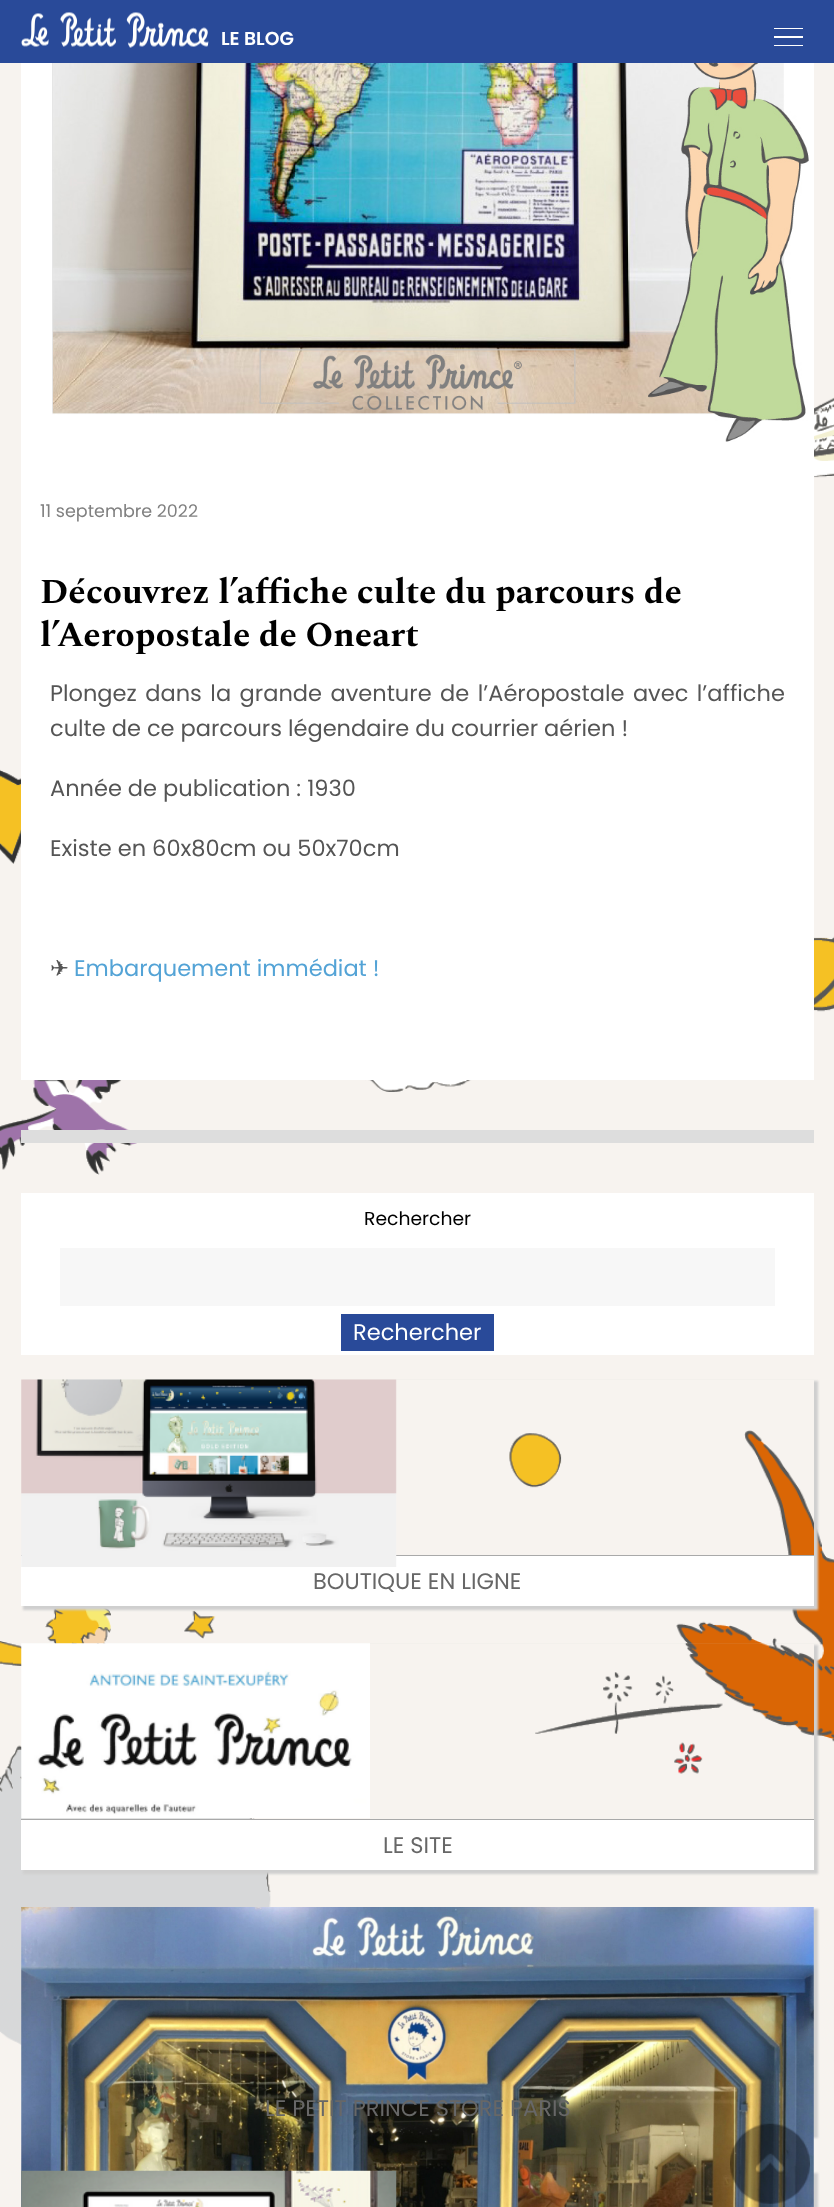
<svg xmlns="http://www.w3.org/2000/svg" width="834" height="2207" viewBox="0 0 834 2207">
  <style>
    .t1 { font: 600 18.75px Poppins; fill: #fff; }
    .t2 { font: 17.5px Poppins; fill: #808080; }
    .t3 { font: bold 35px Spectral; fill: #000; }
    .t4 { font: 22.5px Poppins; fill: #555; }
    .t5 { font: 22.5px DejaVu Sans; fill: #555; }
    .t6 { font: 22.5px Poppins; fill: #53a3d6; }
    .t7 { font: 18.75px Poppins; fill: #000; }
    .t8 { font: 22.5px Poppins; fill: #fff; }
    .t9 { font: 22.5px Poppins; fill: #676767; }
  </style>
  <defs>
    <clipPath id="clip1"><path d="M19 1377H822V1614H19ZM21 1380H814V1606H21Z" clip-rule="evenodd"/></clipPath>
    <clipPath id="clip2"><path d="M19 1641H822V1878H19ZM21 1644H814V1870H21Z" clip-rule="evenodd"/></clipPath>
  </defs>
  <rect width="100%" height="100%" fill="#f7f3ef"/>
  <image x="0" y="397" width="834" height="1649" href="images/1.png"/>
  <rect x="0" y="0" width="834" height="63" fill="#294a99"/>
  <image x="21" y="12" width="188" height="36" href="images/2.png"/>
  <text x="221" y="45" class="t1">LE BLOG</text>
  <rect x="774" y="28" width="29" height="1" fill="#fff"/>
  <rect x="774" y="36" width="29" height="2" fill="#fff"/>
  <rect x="774" y="45" width="29" height="1" fill="#fff"/>
  <rect x="21" y="63" width="793" height="1017" fill="#fff"/>
  <image x="52" y="63" width="757" height="379" href="images/3.png"/>
  <text x="40" y="517" class="t2">11 septembre 2022</text>
  <text x="40" y="603" class="t3">Découvrez l’affiche culte du parcours de</text>
  <text x="40" y="646" class="t3">l’Aeropostale de Oneart</text>
  <text x="50" y="701" word-spacing="2.5" class="t4">Plongez dans la grande aventure de l’Aéropostale avec l’affiche</text>
  <text x="50" y="736" class="t4">culte de ce parcours légendaire du courrier aérien !</text>
  <text x="50" y="796" class="t4">Année de publication : 1930</text>
  <text x="50" y="856" class="t4">Existe en 60x80cm ou 50x70cm</text>
  <text x="50" y="976" class="t5">✈</text>
  <text x="74" y="976" class="t6">Embarquement immédiat !</text>
  <rect x="21" y="1130" width="793" height="13" fill="#ddd"/>
  <rect x="21" y="1193" width="793" height="162" fill="#fff"/>
  <text x="364" y="1225" class="t7">Rechercher</text>
  <rect x="60" y="1248" width="715" height="58" fill="#f7f7f7"/>
  <rect x="341" y="1314" width="153" height="37" fill="#294a99"/>
  <text x="353" y="1340" class="t8">Rechercher</text>
  <g clip-path="url(#clip1)">
    <rect x="23" y="1381" width="795" height="229" fill="#cfcfcf" filter="blur(1px)"/>
  </g>
  <rect x="21" y="1556" width="793" height="50" fill="#fff"/>
  <rect x="21" y="1555" width="793" height="1" fill="#a9a9a9"/>
  <image x="21" y="1379" width="376" height="188" href="images/4.png"/>
  <text x="313" y="1589" class="t9">BOUTIQUE EN LIGNE</text>
  <g clip-path="url(#clip2)">
    <rect x="23" y="1645" width="795" height="229" fill="#cfcfcf" filter="blur(1px)"/>
  </g>
  <image x="21" y="1643" width="349" height="176" href="images/5.png"/>
  <rect x="21" y="1820" width="793" height="50" fill="#fff"/>
  <rect x="21" y="1819" width="793" height="1" fill="#a9a9a9"/>
  <text x="383" y="1853" class="t9">LE SITE</text>
  <rect x="23" y="1909" width="795" height="229" fill="#cfcfcf" filter="blur(1px)"/>
  <rect x="23" y="2173" width="795" height="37" fill="#cfcfcf" filter="blur(1px)"/>
  <image x="21" y="1907" width="793" height="300" href="images/6.png"/>
  <text x="265" y="2116" class="t9">LE PETIT PRINCE STORE PARIS</text>
  <image x="21" y="2170" width="376" height="37" href="images/7.png"/>
  <image x="730" y="2123" width="80" height="81" href="images/8.png"/>
</svg>
